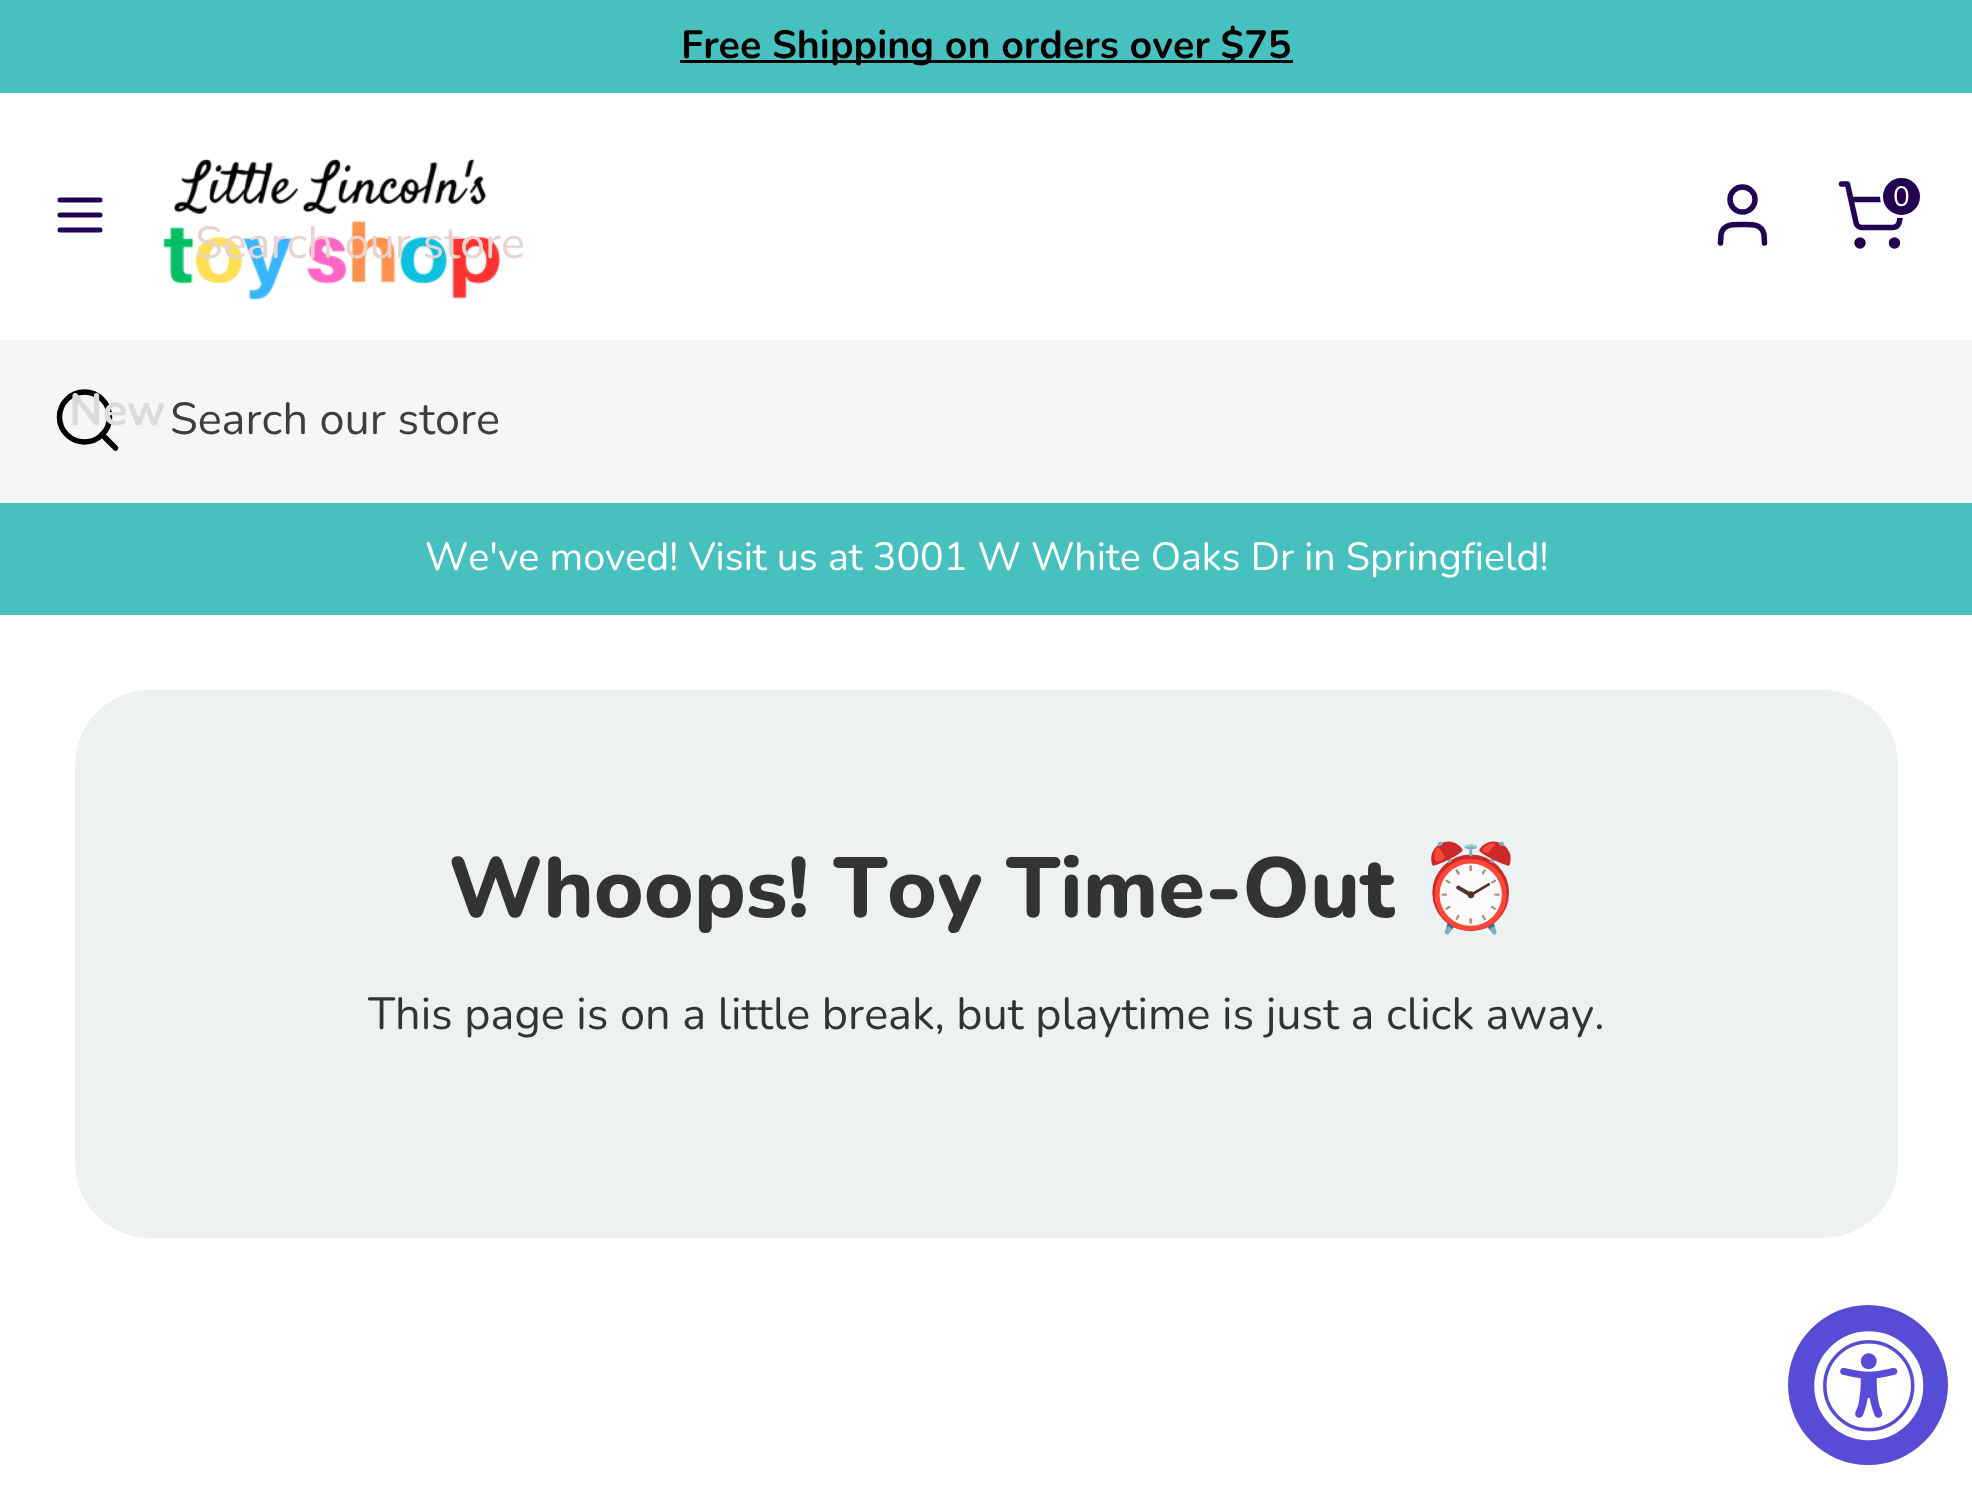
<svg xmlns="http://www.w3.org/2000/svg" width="1972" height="1490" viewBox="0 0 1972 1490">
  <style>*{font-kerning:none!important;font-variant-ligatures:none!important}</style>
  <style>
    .t1 { font: bold 39.4px Nunito; fill: #000; }
    .t2 { font: 28px Nunito; fill: #fff; }
    .t3 { font: 45px Nunito; fill: #e8d4ce; }
    .t4 { font: bold 45px Nunito; fill: #d9dbdd; }
    .t5 { font: 45px Nunito; fill: #3d3e3e; }
    .t6 { font: 39.4px Nunito; fill: #fff; }
    .t7 { font: 800 85px Nunito; fill: #333; }
    .t8 { font: bold 85px Noto Color Emoji; fill: #333; }
    .t9 { font: 45px Nunito; fill: #333; }
  </style>
  <rect width="100%" height="100%" fill="#fff"/>
  <rect x="0" y="0" width="1972" height="93" fill="#47c1bf"/>
  <rect x="680" y="60" width="613" height="3" fill="#000"/>
  <text x="681" y="58" class="t1">Free Shipping on orders over $75</text>
  <path d="M60 215H100M60 200H100M60 230H100" fill="none" stroke="#230051" stroke-width="5" stroke-linecap="round" stroke-linejoin="round"/>
  <image x="163" y="158" width="338" height="142" href="images/1.png"/>
  <path d="M1764.5 243L1764 234.5C1762 223.5 1751 224.5 1742.5 224.5C1734 224.5 1723 223.5 1721 234.5L1720.5 243" fill="none" stroke="#230051" stroke-width="5.5" stroke-linecap="round" stroke-linejoin="round"/>
  <circle cx="1742.5" cy="199.5" r="12.5" fill="none" stroke="#230051" stroke-width="5.5"/>
  <circle cx="1860" cy="243" r="3" fill="none" stroke="#230051" stroke-width="5.5"/>
  <circle cx="1894.5" cy="243" r="3" fill="none" stroke="#230051" stroke-width="5.5"/>
  <path d="M1841.5 184H1847.5L1856 222.5C1856.5 225.5 1859 227.5 1862 227.5H1893C1895.5 227.5 1898 225.5 1899 223L1904 199.5H1851" fill="none" stroke="#230051" stroke-width="5.5" stroke-linecap="round" stroke-linejoin="round"/>
  <circle cx="1901.5" cy="196.5" r="20" fill="#230051" stroke="#fff" stroke-width="3"/>
  <text x="1893" y="206" class="t2">0</text>
  <text x="195" y="258" class="t3">Search our store</text>
  <rect x="0" y="340" width="1972" height="163" fill="#f4f6f8"/>
  <circle cx="84.5" cy="417" r="25" fill="none" stroke="#000" stroke-width="5.5"/>
  <text x="69" y="425" class="t4">New</text>
  <path d="M115.5 448L102 434.5" fill="none" stroke="#000" stroke-width="5.5" stroke-linecap="round" stroke-linejoin="round"/>
  <text x="170" y="434" class="t5">Search our store</text>
  <rect x="0" y="503" width="1972" height="112" fill="#47c1bf"/>
  <text x="425" y="570" class="t6">We've moved! Visit us at 3001 W White Oaks Dr in Springfield!</text>
  <rect x="75" y="690" width="1823" height="548" rx="75" fill="#ecf1f2"/>
  <text x="448" y="917" class="t7">Whoops! Toy Time-Out</text>
  <text x="1418" y="917" class="t8">⏰</text>
  <text x="368" y="1029" class="t9">This page is on a little break, but playtime is just a click away.</text>
  <circle cx="1868" cy="1385" r="80" fill="#574cd5"/>
  <image x="1814" y="1331" width="110" height="110" href="images/2.png"/>
</svg>
